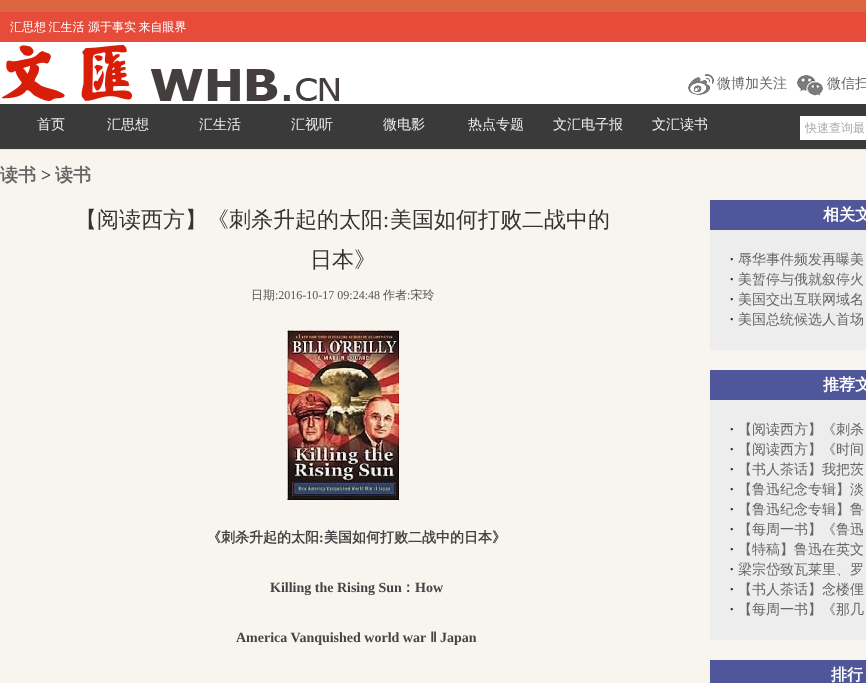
<svg xmlns="http://www.w3.org/2000/svg" width="866" height="683" viewBox="0 0 866 683">
  <style>
    .t1 { font: 500 12px WenQuanYi Zen Hei; fill: #fff; }
    .t2 { font: 500 14px WenQuanYi Zen Hei; fill: #666; }
    .t3 { font: 500 14px WenQuanYi Zen Hei; fill: #eee; }
    .t4 { font: 500 12px WenQuanYi Zen Hei; fill: #aca8a8; }
    .t5 { font: bold 18px WenQuanYi Zen Hei; fill: #666; }
    .t6 { font: bold 18px Liberation Serif; fill: #443e3e; }
    .t7 { font: 500 22px WenQuanYi Zen Hei; fill: #333; }
    .t8 { font: 22px Liberation Serif; fill: #333; }
    .t9 { font: 500 12px WenQuanYi Zen Hei; fill: #555; }
    .t10 { font: 12px Liberation Serif; fill: #555; }
    .t11 { font: bold 14px WenQuanYi Zen Hei; fill: #444; }
    .t12 { font: bold 14px Liberation Serif; fill: #444; }
    .t13 { font: bold 14px DejaVu Sans; fill: #444; }
    .t14 { font: bold 16px WenQuanYi Zen Hei; fill: #fff; }
    .t15 { font: bold 14px Liberation Serif; fill: #272727; }
  </style>
  <rect width="100%" height="100%" fill="#fff"/>
  <image x="0" y="0" width="866" height="12" href="images/1.png"/>
  <rect x="0" y="12" width="866" height="30" fill="#e74c3b"/>
  <text x="10" y="31" word-spacing="-1" class="t1">汇思想 汇生活</text>
  <text x="88" y="31" word-spacing="-1" class="t1">源于事实 来自眼界</text>
  <rect x="0" y="149" width="866" height="1" fill="#e7e7e7"/>
  <image x="2" y="45" width="337" height="56" href="images/2.png"/>
  <image x="688" y="74" width="26" height="21" href="images/3.png"/>
  <text x="717" y="88" class="t2">微博加关注</text>
  <image x="797" y="75" width="26" height="21" href="images/4.png"/>
  <text x="827" y="88" class="t2">微信扫</text>
  <rect x="0" y="104" width="866" height="45" fill="#3a3a3a"/>
  <text x="37" y="129" class="t3">首页</text>
  <text x="107" y="129" class="t3">汇思想</text>
  <text x="199" y="129" class="t3">汇生活</text>
  <text x="291" y="129" class="t3">汇视听</text>
  <text x="383" y="129" class="t3">微电影</text>
  <text x="468" y="129" class="t3">热点专题</text>
  <text x="553" y="129" class="t3">文汇电子报</text>
  <text x="652" y="129" class="t3">文汇读书</text>
  <rect x="800" y="116" width="66" height="24" fill="#fff"/>
  <text x="805" y="132" class="t4">快速查询最</text>
  <rect x="0" y="150" width="866" height="533" fill="#f7f5ed"/>
  <text x="0" y="181" class="t5">读书</text>
  <text x="41" y="181" class="t6">&gt;</text>
  <text x="55" y="181" class="t5">读书</text>
  <text x="75" y="227" class="t7">【阅读西方】《刺杀升起的太阳</text>
  <text x="383" y="227" class="t8">:</text>
  <text x="390" y="227" class="t7">美国如何打败二战中的</text>
  <text x="310" y="267" class="t7">日本》</text>
  <text x="251" y="299" class="t9">日期</text>
  <text x="275" y="299" class="t10">:2016-10-17 09:24:48</text>
  <text x="383" y="299" class="t9">作者 宋玲</text>
  <text x="407" y="299" class="t10">:</text>
  <image x="287" y="330" width="112" height="170" href="images/5.png"/>
  <text x="207" y="542" class="t11">《刺杀升起的太阳</text>
  <text x="319" y="542" class="t12">:</text>
  <text x="324" y="542" class="t11">美国如何打败二战中的日本》</text>
  <text x="270" y="592" class="t12">Killing the Rising Sun</text>
  <text x="401" y="592" class="t11">：</text>
  <text x="415" y="592" class="t12">How</text>
  <text x="236" y="642" class="t12">America Vanquished world war</text>
  <text x="430" y="642" class="t13">Ⅱ</text>
  <text x="440" y="642" class="t12">Japan</text>
  <rect x="710" y="200" width="156" height="30" fill="#4f569a"/>
  <text x="823" y="220" class="t14">相关文</text>
  <rect x="710" y="230" width="156" height="120" fill="#ededed"/>
  <text x="730" y="260" class="t15">.</text>
  <text x="738" y="264" class="t2">辱华事件频发再曝美</text>
  <text x="730" y="280" class="t15">.</text>
  <text x="738" y="284" class="t2">美暂停与俄就叙停火</text>
  <text x="730" y="300" class="t15">.</text>
  <text x="738" y="304" class="t2">美国交出互联网域名</text>
  <text x="730" y="320" class="t15">.</text>
  <text x="738" y="324" class="t2">美国总统候选人首场</text>
  <rect x="710" y="370" width="156" height="30" fill="#4f569a"/>
  <text x="823" y="390" class="t14">推荐文</text>
  <rect x="710" y="400" width="156" height="240" fill="#ededed"/>
  <text x="730" y="430" class="t15">.</text>
  <text x="738" y="434" class="t2">【阅读西方】《刺杀</text>
  <text x="730" y="450" class="t15">.</text>
  <text x="738" y="454" class="t2">【阅读西方】《时间</text>
  <text x="730" y="470" class="t15">.</text>
  <text x="738" y="474" class="t2">【书人茶话】我把茨</text>
  <text x="730" y="490" class="t15">.</text>
  <text x="738" y="494" class="t2">【鲁迅纪念专辑】淡</text>
  <text x="730" y="510" class="t15">.</text>
  <text x="738" y="514" class="t2">【鲁迅纪念专辑】鲁</text>
  <text x="730" y="530" class="t15">.</text>
  <text x="738" y="534" class="t2">【每周一书】《鲁迅</text>
  <text x="730" y="550" class="t15">.</text>
  <text x="738" y="554" class="t2">【特稿】鲁迅在英文</text>
  <text x="730" y="570" class="t15">.</text>
  <text x="738" y="574" class="t2">梁宗岱致瓦莱里、罗</text>
  <text x="730" y="590" class="t15">.</text>
  <text x="738" y="594" class="t2">【书人茶话】念楼俚</text>
  <text x="730" y="610" class="t15">.</text>
  <text x="738" y="614" class="t2">【每周一书】《那几</text>
  <rect x="710" y="660" width="156" height="23" fill="#4f569a"/>
  <text x="831" y="680" class="t14">排行</text>
</svg>
